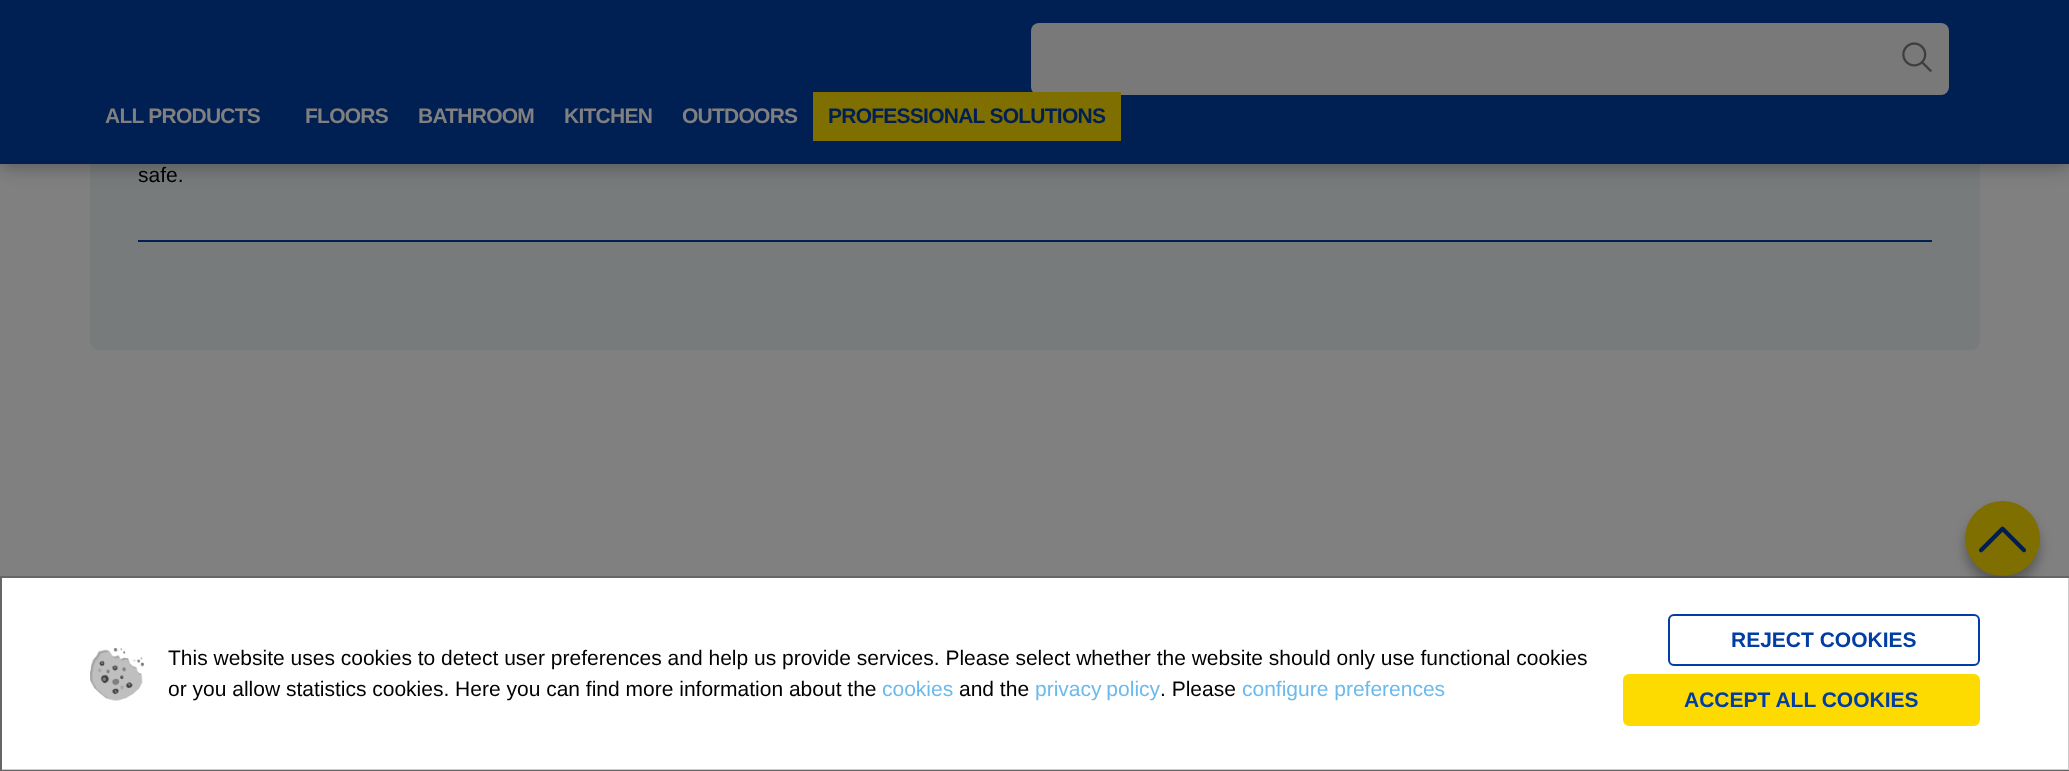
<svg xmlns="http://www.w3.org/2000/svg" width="2069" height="771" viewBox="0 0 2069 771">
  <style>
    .t1 { font: bold 21px Liberation Sans; letter-spacing: -0.75px; fill: #808080; }
    .t2 { font: bold 21px Liberation Sans; letter-spacing: -0.75px; fill: #001f53; }
    .t3 { font: 21px Liberation Sans; fill: #000; }
    .t4 { font: 21px Liberation Sans; fill: #6bbaed; }
    .t5 { font: bold 21px Liberation Sans; fill: #003da5; }
  </style>
  <rect width="100%" height="100%" fill="#808080"/>
  <rect x="90" y="-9" width="1890" height="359" rx="9" fill="#787b7c"/>
  <rect x="0" y="3" width="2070" height="164" fill="#0000004d" filter="blur(9px)"/>
  <rect x="0" y="0" width="2069" height="164" fill="#001f53"/>
  <rect x="1031" y="23" width="918" height="72" rx="8" fill="#797979"/>
  <image x="1902" y="42" width="30" height="30" href="images/1.png"/>
  <text x="105" y="123" class="t1">ALL PRODUCTS</text>
  <text x="305" y="123" class="t1">FLOORS</text>
  <text x="418" y="123" class="t1">BATHROOM</text>
  <text x="564" y="123" class="t1">KITCHEN</text>
  <text x="682" y="123" class="t1">OUTDOORS</text>
  <rect x="813" y="92" width="308" height="49" fill="#7f6e00"/>
  <text x="828" y="123" class="t2">PROFESSIONAL SOLUTIONS</text>
  <rect x="138" y="240" width="1794" height="2" fill="#001f53"/>
  <text x="138" y="182" class="t3">safe.</text>
  <rect x="1965" y="510" width="75" height="75" rx="37.5" fill="#0000004d" filter="blur(6px)"/>
  <circle cx="2002.5" cy="538.5" r="37.5" fill="#7f6e00"/>
  <image x="1978" y="526" width="49" height="27" href="images/2.png"/>
  <rect x="2" y="578" width="2067" height="192" fill="#fff"/>
  <rect x="1" y="577" width="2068" height="193" fill="none" stroke="#00000033" stroke-width="2"/>
  <image x="90" y="648" width="54" height="53" href="images/3.png"/>
  <text x="168" y="665" class="t3">This website uses cookies to detect user preferences and help us provide services. Please select whether the website should only use functional cookies</text>
  <text x="168" y="696" class="t3">or you allow statistics cookies. Here you can find more information about the</text>
  <text x="882" y="696" class="t4">cookies</text>
  <text x="959" y="696" class="t3">and the</text>
  <text x="1035" y="696" word-spacing="-1" class="t4">privacy policy</text>
  <text x="1160" y="696" class="t3">. Please</text>
  <text x="1242" y="696" class="t4">configure preferences</text>
  <rect x="1669" y="615" width="310" height="50" rx="5" fill="none" stroke="#003da5" stroke-width="2"/>
  <text x="1731" y="647" class="t5">REJECT COOKIES</text>
  <rect x="1624" y="675" width="355" height="50" rx="5" fill="#fedb00" stroke="#fedb00" stroke-width="2"/>
  <text x="1684" y="707" class="t5">ACCEPT ALL COOKIES</text>
</svg>
